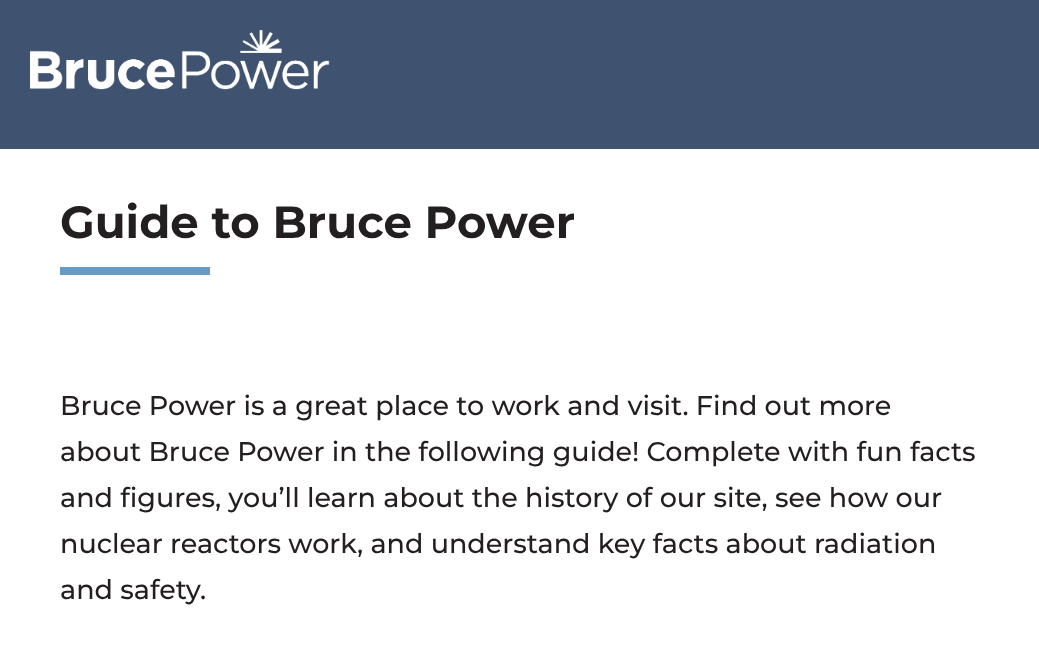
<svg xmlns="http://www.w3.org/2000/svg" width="1039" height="667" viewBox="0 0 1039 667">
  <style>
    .t1 { font: bold 45px Montserrat; fill: #231f20; }
    .t2 { font: 500 27px Montserrat; fill: #231f20; }
  </style>
  <rect width="100%" height="100%" fill="#fff"/>
  <rect x="0" y="0" width="1039" height="149" fill="#3f5270"/>
  <image x="30" y="30" width="300" height="60" href="images/1.png"/>
  <text x="60" y="238" class="t1">Guide to Bruce Power</text>
  <rect x="60" y="267" width="150" height="8" fill="#659bc6"/>
  <text x="60" y="415" class="t2">Bruce Power is a great place to work and visit. Find out more</text>
  <text x="60" y="461" class="t2">about Bruce Power in the following guide! Complete with fun facts</text>
  <text x="60" y="507" class="t2">and figures, you’ll learn about the history of our site, see how our</text>
  <text x="60" y="553" class="t2">nuclear reactors work, and understand key facts about radiation</text>
  <text x="60" y="599" class="t2">and safety.</text>
</svg>
